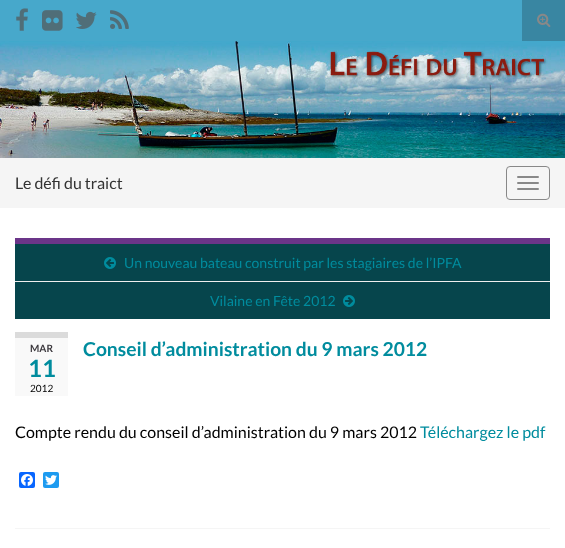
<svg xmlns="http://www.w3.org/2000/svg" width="565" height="548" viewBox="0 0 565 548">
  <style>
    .t1 { font: 16px Lato; fill: #333; }
    .t2 { font: 14px Lato; fill: #008c9e; }
    .t3 { font: bold 10px Lato; fill: #3b383d; }
    .t4 { font: bold 24px Lato; fill: #008c9e; }
    .t5 { font: 10px Lato; fill: #000; }
    .t6 { font: bold 19.25px Lato; fill: #008c9e; }
    .t7 { font: 16px Lato; fill: #000; }
    .t8 { font: 16px Lato; fill: #008c9e; }
  </style>
  <rect width="100%" height="100%" fill="#47a8cb"/>
  <image x="16" y="8" width="12" height="23" href="images/1.png"/>
  <image x="42" y="10" width="21" height="21" href="images/2.png"/>
  <image x="76" y="11" width="21" height="18" href="images/3.png"/>
  <image x="110" y="10" width="19" height="19" href="images/4.png"/>
  <rect x="522" y="0" width="43" height="41" fill="#3986a2"/>
  <image x="537" y="13" width="14" height="14" href="images/5.png"/>
  <image x="0" y="41" width="565" height="117" href="images/6.png"/>
  <rect x="0" y="158" width="565" height="50" fill="#f5f5f5"/>
  <text x="15" y="189" class="t1">Le défi du traict</text>
  <rect x="506.5" y="166.5" width="43" height="33" rx="3.5" fill="none" stroke="#888"/>
  <rect x="517" y="176" width="22" height="2" rx="1" fill="#888"/>
  <rect x="517" y="182" width="22" height="2" rx="1" fill="#888"/>
  <rect x="517" y="188" width="22" height="2" rx="1" fill="#888"/>
  <rect x="0" y="208" width="565" height="340" fill="#fff"/>
  <rect x="15" y="244" width="535" height="75" fill="#06454c"/>
  <rect x="15" y="238" width="535" height="6" fill="#6b3589"/>
  <image x="104" y="257" width="12" height="12" href="images/7.png"/>
  <text x="124" y="268" class="t2">Un nouveau bateau construit par les stagiaires de l’IPFA</text>
  <rect x="15" y="281" width="535" height="1" fill="#eee"/>
  <text x="210" y="306" class="t2">Vilaine en Fête 2012</text>
  <image x="343" y="295" width="12" height="12" href="images/8.png"/>
  <rect x="15" y="338" width="53" height="58" fill="#f9f9f9"/>
  <rect x="15" y="332" width="53" height="6" fill="#dbdbdb"/>
  <text x="30" y="352" class="t3">MAR</text>
  <text x="28" y="377" class="t4">11</text>
  <text x="30" y="392" class="t5">2012</text>
  <text x="83" y="356" class="t6">Conseil d’administration du 9 mars 2012</text>
  <text x="15" y="438" class="t7">Compte rendu du conseil d’administration du 9 mars 2012</text>
  <text x="420" y="438" class="t8">Téléchargez le pdf</text>
  <rect x="19" y="472" width="16" height="16" rx="2" fill="#0866ff"/>
  <image x="21" y="474" width="12" height="12" href="images/9.png"/>
  <rect x="43" y="472" width="16" height="16" rx="2" fill="#1d9bf0"/>
  <image x="45" y="475" width="12" height="10" href="images/10.png"/>
  <rect x="15" y="528" width="535" height="1" fill="#f5f5f5"/>
</svg>
